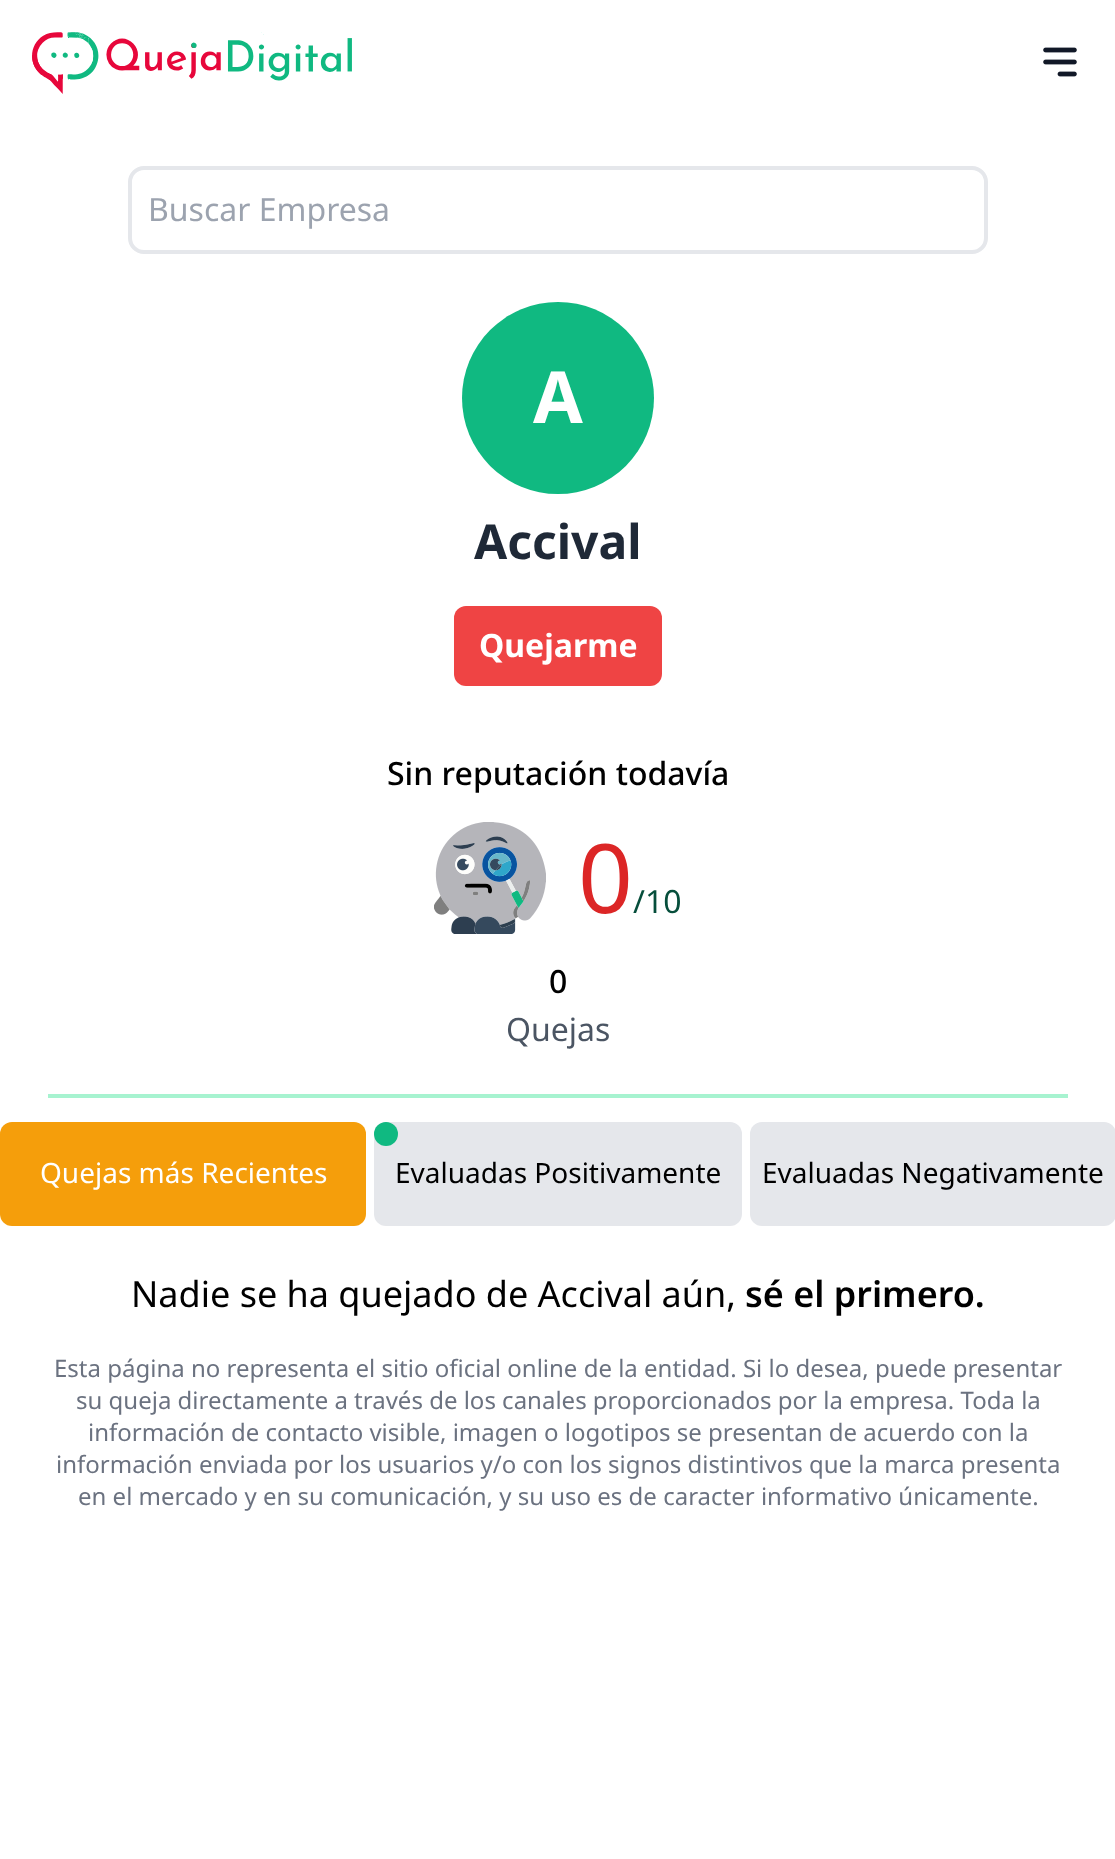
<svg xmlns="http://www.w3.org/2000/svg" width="1115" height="1859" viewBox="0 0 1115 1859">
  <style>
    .t1 { font: 32px Noto Sans; fill: #9ca3af; }
    .t2 { font: bold 72px Noto Sans; fill: #fff; }
    .t3 { font: bold 48px Noto Sans; fill: #1f2937; }
    .t4 { font: bold 32px Noto Sans; fill: #fff; }
    .t5 { font: 500 32px Noto Sans; fill: #000; }
    .t6 { font: 96px Noto Sans; fill: #dc2626; }
    .t7 { font: 32px Noto Sans; fill: #064e3b; }
    .t8 { font: 32px Noto Sans; fill: #4b5563; }
    .t9 { font: 28px Noto Sans; fill: #fff; }
    .t10 { font: 28px Noto Sans; fill: #000; }
    .t11 { font: 36px Noto Sans; fill: #000; }
    .t12 { font: 600 36px Noto Sans; fill: #000; }
    .t13 { font: 24px Noto Sans; fill: #6b7280; }
  </style>
  <rect width="100%" height="100%" fill="#fff"/>
  <image x="32" y="32" width="320" height="62" href="images/1.png"/>
  <image x="1043" y="47" width="34" height="30" href="images/2.png"/>
  <rect x="130" y="168" width="856" height="84" rx="14" fill="none" stroke="#e5e7eb" stroke-width="4"/>
  <text x="148" y="221" class="t1">Buscar Empresa</text>
  <rect x="48" y="1094" width="1020" height="4" fill="#a7f3d0"/>
  <circle cx="558" cy="398" r="96" fill="#10b981"/>
  <text x="533" y="423" class="t2">A</text>
  <text x="474" y="559" class="t3">Accival</text>
  <rect x="454" y="606" width="208" height="80" rx="12" fill="#ef4444"/>
  <text x="479" y="657" class="t4">Quejarme</text>
  <text x="387" y="785" class="t5">Sin reputación todavía</text>
  <image x="434" y="822" width="112" height="112" href="images/3.png"/>
  <text x="578" y="913" class="t6">0</text>
  <text x="633" y="913" class="t7">/10</text>
  <text x="549" y="993" class="t5">0</text>
  <text x="506" y="1041" class="t8">Quejas</text>
  <rect x="0" y="1122" width="366" height="104" rx="12" fill="#f59e0b"/>
  <text x="40" y="1183" class="t9">Quejas más Recientes</text>
  <rect x="374" y="1122" width="368" height="104" rx="12" fill="#e5e7eb"/>
  <circle cx="386" cy="1134" r="12" fill="#10b981"/>
  <text x="395" y="1183" class="t10">Evaluadas Positivamente</text>
  <rect x="750" y="1122" width="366" height="104" rx="12" fill="#e5e7eb"/>
  <text x="762" y="1183" class="t10">Evaluadas Negativamente</text>
  <text x="131" y="1307" class="t11">Nadie se ha quejado de Accival aún,</text>
  <text x="745" y="1307" class="t12">sé el primero.</text>
  <text x="54" y="1377" class="t13">Esta página no representa el sitio oficial online de la entidad. Si lo desea, puede presentar</text>
  <text x="76" y="1409" class="t13">su queja directamente a través de los canales proporcionados por la empresa. Toda la</text>
  <text x="88" y="1441" class="t13">información de contacto visible, imagen o logotipos se presentan de acuerdo con la</text>
  <text x="56" y="1473" class="t13">información enviada por los usuarios y/o con los signos distintivos que la marca presenta</text>
  <text x="78" y="1505" class="t13">en el mercado y en su comunicación, y su uso es de caracter informativo únicamente.</text>
</svg>
